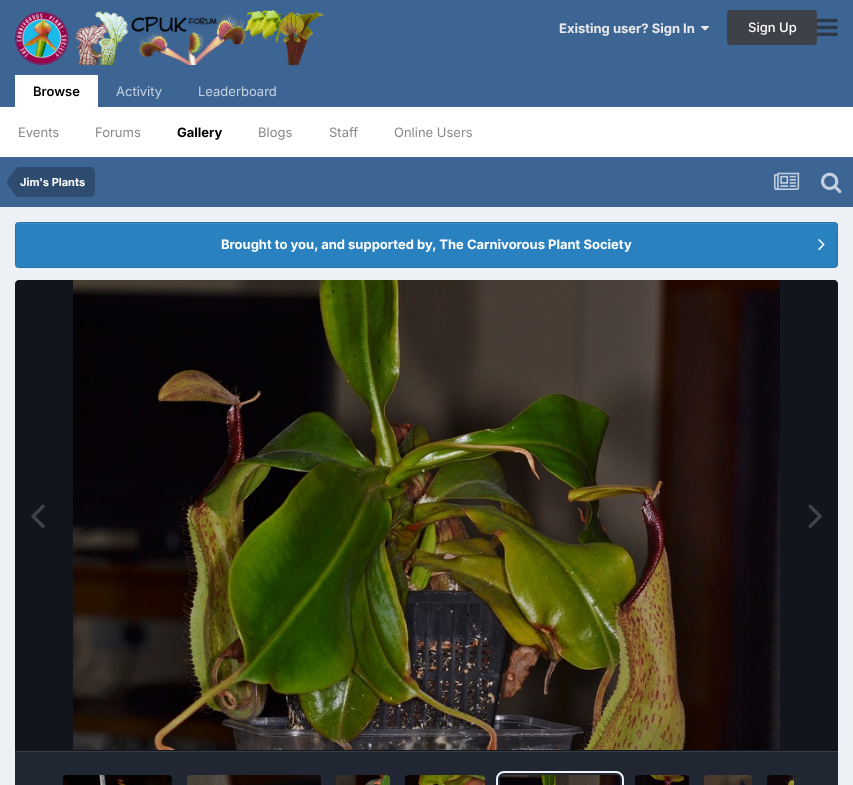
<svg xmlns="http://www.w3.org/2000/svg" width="853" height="785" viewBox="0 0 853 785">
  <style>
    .t1 { font: bold 13px Inter; fill: #eaeaea; }
    .t2 { font: 500 13px Inter; fill: #fff; }
    .t3 { font: 600 13px Inter; fill: #000; }
    .t4 { font: 13px Inter; fill: #868a8d; }
    .t5 { font: bold 13px Inter; fill: #000; }
    .t6 { font: 13px Inter; fill: #c5d1df; }
    .t7 { font: bold 11px Inter; fill: #fff; }
    .t8 { font: bold 13px Inter; fill: #fff; }
  </style>
  <rect width="100%" height="100%" fill="#edf0f4"/>
  <rect x="0" y="0" width="853" height="107" fill="#3d6594"/>
  <image x="15" y="10" width="309" height="55" href="images/1.png"/>
  <text x="559" y="33" class="t1">Existing user? Sign In</text>
  <image x="701" y="26" width="8" height="5" href="images/2.png"/>
  <rect x="727" y="10" width="90" height="35" rx="4" fill="#3e4148"/>
  <text x="748" y="32" class="t2">Sign Up</text>
  <image x="817" y="18" width="21" height="18" href="images/3.png"/>
  <rect x="15" y="75" width="83" height="32" fill="#fff"/>
  <text x="33" y="96" class="t3">Browse</text>
  <rect x="0" y="107" width="853" height="50" fill="#fff"/>
  <text x="18" y="137" class="t4">Events</text>
  <text x="95" y="137" class="t4">Forums</text>
  <text x="177" y="137" class="t5">Gallery</text>
  <text x="258" y="137" class="t4">Blogs</text>
  <text x="329" y="137" class="t4">Staff</text>
  <text x="394" y="137" class="t4">Online Users</text>
  <text x="116" y="96" class="t6">Activity</text>
  <text x="198" y="96" class="t6">Leaderboard</text>
  <rect x="0" y="157" width="853" height="50" fill="#3d6594"/>
  <path d="M20 167H90C93 167 95 169 95 172V192C95 195 93 197 90 197H20Z" fill="#2e4c6f"/>
  <path d="M20 182V197C15.5 197 13.5 192.5 11 189C9.5 187 7 185 7 182ZM20 182H7C7 179 9.5 177 11 175C13.5 171.5 15.5 167 20 167Z" fill="#2e4c6f"/>
  <text x="20" y="186" class="t7">Jim's Plants</text>
  <image x="774" y="172" width="26" height="18" href="images/4.png"/>
  <image x="821" y="172" width="21" height="22" href="images/5.png"/>
  <rect x="15" y="222" width="823" height="46" rx="4" fill="#2981bf"/>
  <path d="M19 224H834C836 224 837 225 837 227C837 225 836 223 834 223H19C17 223 16 225 16 227C16 225 17 224 19 224Z" fill="#3e8ec5"/>
  <rect x="15.5" y="222.5" width="822" height="45" rx="3.5" fill="none" stroke="#0000001a"/>
  <text x="221" y="249" class="t8">Brought to you, and supported by, The Carnivorous Plant Society</text>
  <image x="818" y="239" width="7" height="12" href="images/6.png"/>
  <path d="M19 280H834C836 280 838 282 838 284V751H15V284C15 282 17 280 19 280Z" fill="#2d3748"/>
  <path d="M19 280H834C836 280 838 282 838 284V751H15V284C15 282 17 280 19 280Z" fill="#00000099"/>
  <image x="73" y="280" width="707" height="470" href="images/7.png"/>
  <image x="31" y="504" width="14" height="24" href="images/8.png"/>
  <image x="808" y="504" width="14" height="24" href="images/9.png"/>
  <rect x="15" y="752" width="823" height="33" fill="#202732"/>
  <rect x="15" y="751" width="823" height="1" fill="#363d47"/>
  <image x="63" y="775" width="109" height="10" href="images/10.png"/>
  <image x="187" y="775" width="134" height="10" href="images/11.png"/>
  <image x="336" y="775" width="54" height="10" href="images/12.png"/>
  <image x="405" y="775" width="80" height="10" href="images/13.png"/>
  <rect x="497" y="772" width="126" height="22" rx="7" fill="none" stroke="#edf2f7" stroke-width="2"/>
  <image x="500" y="775" width="120" height="10" href="images/14.png"/>
  <image x="635" y="775" width="54" height="10" href="images/15.png"/>
  <image x="704" y="775" width="48" height="10" href="images/16.png"/>
  <image x="767" y="775" width="27" height="10" href="images/17.png"/>
</svg>
